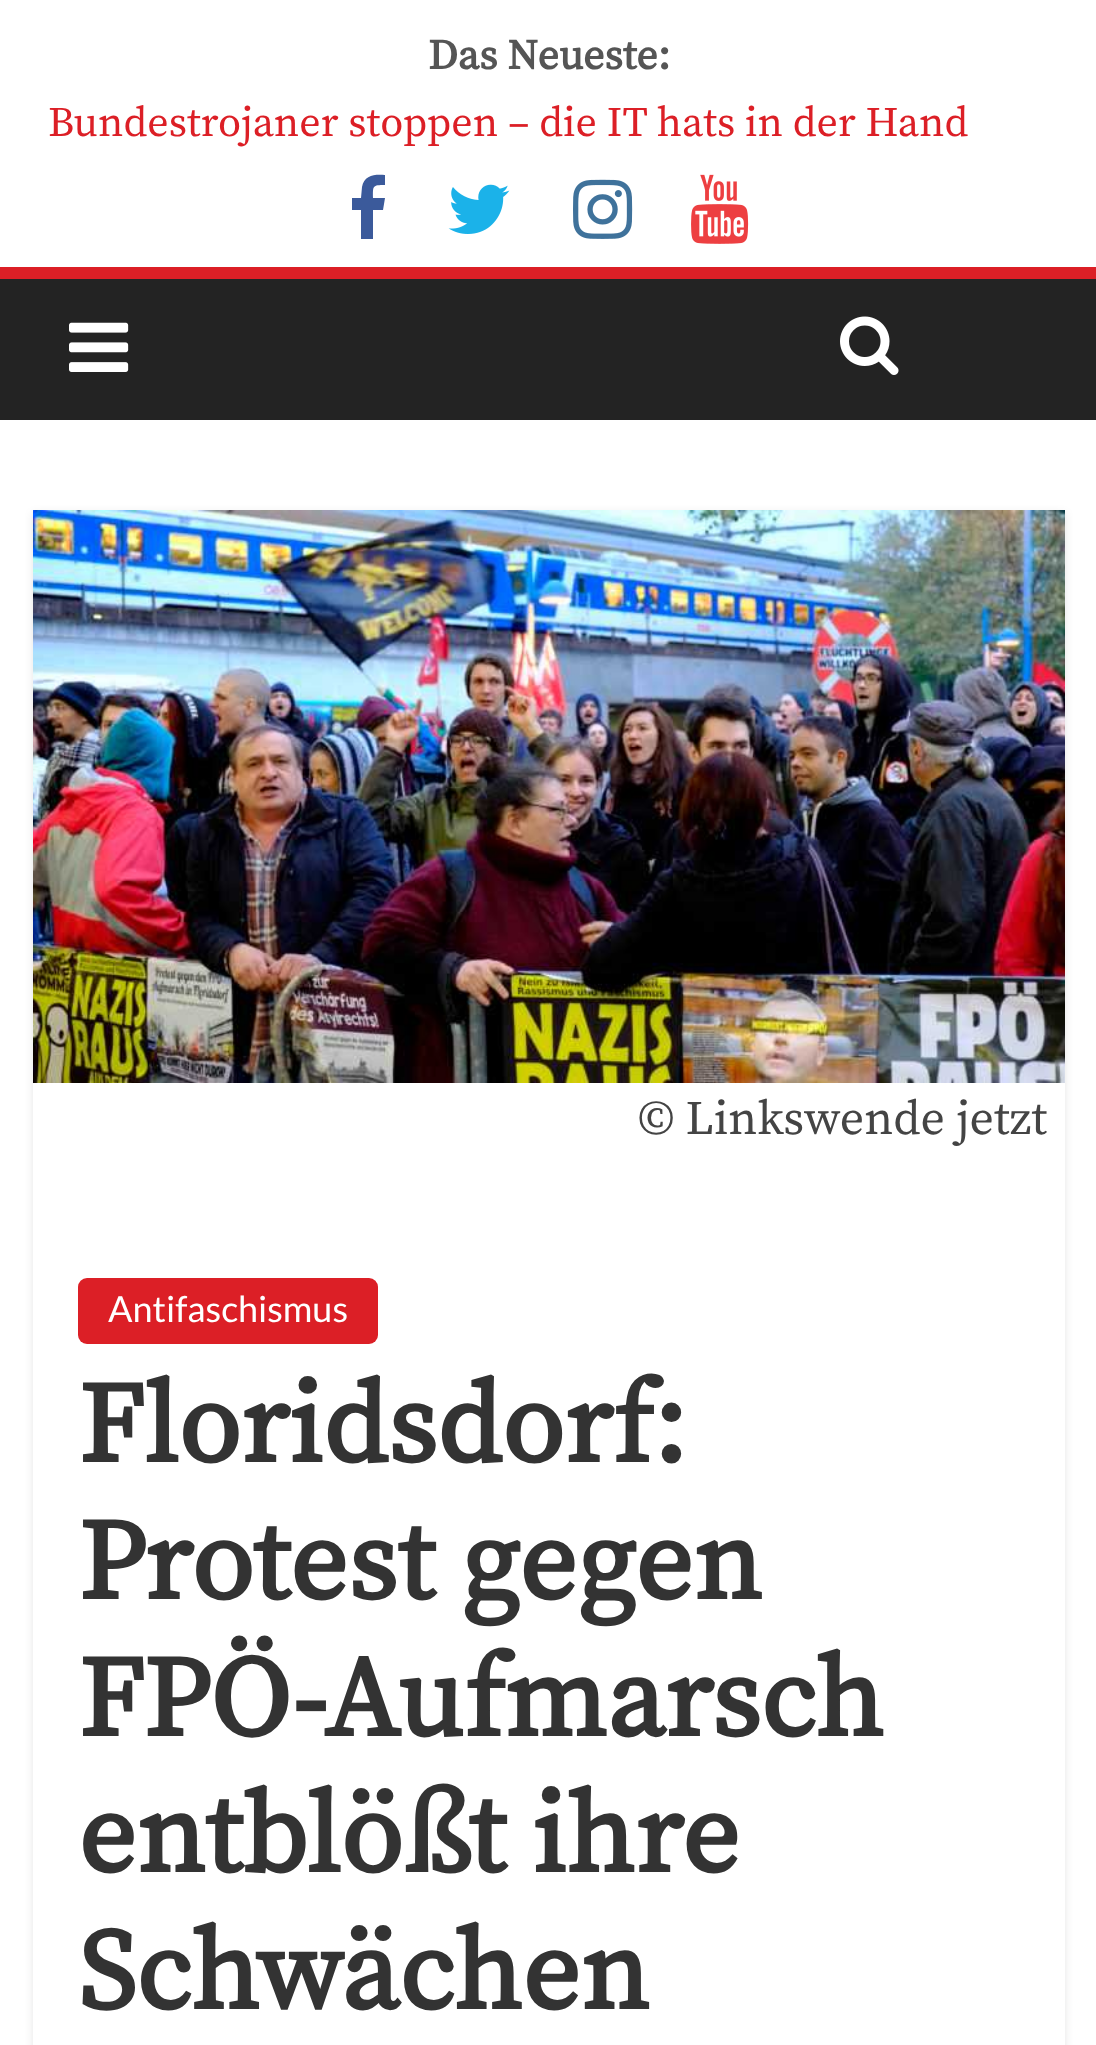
<svg xmlns="http://www.w3.org/2000/svg" width="1096" height="2045" viewBox="0 0 1096 2045">
  <style>
    .t1 { font: bold 42px Source Serif Pro; fill: #555; }
    .t2 { font: 42px Source Serif Pro; fill: #dc1f26; }
    .t3 { font: 48px Source Serif Pro; fill: #444; }
    .t4 { font: 36px Lato; fill: #fff; }
    .t5 { font: bold 114px Source Serif Pro; fill: #333; }
  </style>
  <defs>
    <clipPath id="clip1"><path d="M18 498H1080V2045H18ZM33 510H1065V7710H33Z" clip-rule="evenodd"/></clipPath>
  </defs>
  <rect width="100%" height="100%" fill="#fff"/>
  <text x="428" y="69" class="t1">Das Neueste:</text>
  <text x="48" y="136" class="t2">Bundestrojaner stoppen – die IT hats in der Hand</text>
  <path d="M385 175V185C372 185 373 186 373 198H385L383 210H373V239H361V210H352V198H361L362 187C364 175 375 174 385 175Z" fill="#3b5a9b"/>
  <image x="448" y="184" width="62" height="50" href="images/1.png"/>
  <image x="573" y="179" width="60" height="60" href="images/2.png"/>
  <image x="691" y="174" width="58" height="70" href="images/3.png"/>
  <rect x="0" y="279" width="1096" height="141" fill="#232323"/>
  <rect x="0" y="267" width="1096" height="12" fill="#dc1f26"/>
  <image x="69" y="322" width="60" height="50" href="images/4.png"/>
  <image x="840" y="316" width="59" height="59" href="images/5.png"/>
  <g clip-path="url(#clip1)">
    <rect x="33" y="513" width="1032" height="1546" fill="#0000001a" filter="blur(4.5px)"/>
  </g>
  <image x="33" y="510" width="1032" height="573" href="images/6.png"/>
  <text x="638" y="1134" class="t3">© Linkswende jetzt</text>
  <rect x="78" y="1278" width="300" height="66" rx="9" fill="#dc1f26"/>
  <text x="108" y="1322" class="t4">Antifaschismus</text>
  <text x="78" y="1462" class="t5">Floridsdorf:</text>
  <text x="78" y="1599" class="t5">Protest gegen</text>
  <text x="78" y="1736" class="t5">FPÖ-Aufmarsch</text>
  <text x="78" y="1872" class="t5">entblößt ihre</text>
  <text x="78" y="2009" class="t5">Schwächen</text>
</svg>
